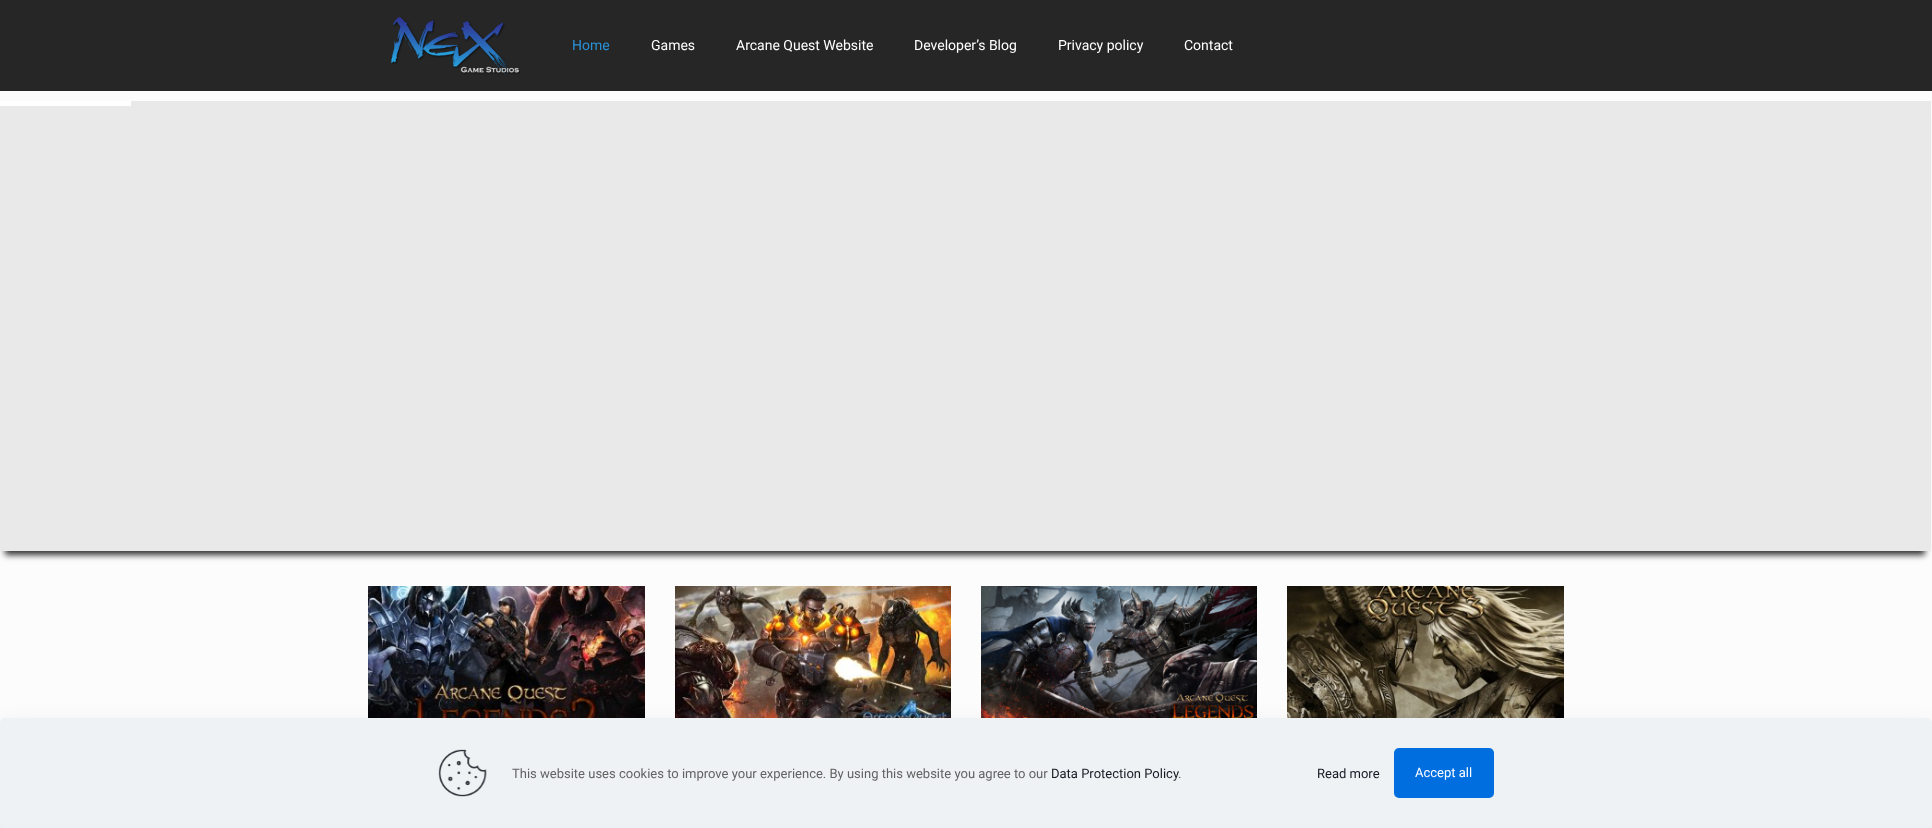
<svg xmlns="http://www.w3.org/2000/svg" width="1932" height="828" viewBox="0 0 1932 828">
  <style>
    .t1 { font: 14px Roboto; fill: #2991d6; }
    .t2 { font: 14px Roboto; fill: #fff; }
    .t3 { font: 13px Roboto; fill: #626262; }
    .t4 { font: 13px Roboto; fill: #161922; }
    .t5 { font: 13px Roboto; fill: #fff; }
  </style>
  <rect width="100%" height="100%" fill="#fcfcfc"/>
  <rect x="0" y="0" width="1932" height="91" fill="#262626"/>
  <image x="391" y="17" width="129" height="58" href="images/1.png"/>
  <text x="572" y="50" class="t1">Home</text>
  <text x="651" y="50" class="t2">Games</text>
  <text x="736" y="50" class="t2">Arcane Quest Website</text>
  <text x="914" y="50" class="t2">Developer’s Blog</text>
  <text x="1058" y="50" class="t2">Privacy policy</text>
  <text x="1184" y="50" class="t2">Contact</text>
  <rect x="5" y="117" width="1920" height="438" fill="#000000cc" filter="blur(3px)"/>
  <rect x="0" y="101" width="1931" height="450" fill="#e9e9e9"/>
  <rect x="0" y="101" width="131" height="5" fill="#fff"/>
  <image x="368" y="586" width="277" height="132" href="images/2.png"/>
  <image x="675" y="586" width="276" height="132" href="images/3.png"/>
  <image x="981" y="586" width="276" height="132" href="images/4.png"/>
  <image x="1287" y="586" width="277" height="132" href="images/5.png"/>
  <rect x="0" y="733" width="1932" height="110" rx="5" fill="#01072721" filter="blur(15px)"/>
  <rect x="0" y="718" width="1932" height="110" rx="5" fill="#eef2f5"/>
  <image x="438" y="749" width="49" height="48" href="images/6.png"/>
  <text x="512" y="778" class="t3">This website uses cookies to improve your experience. By using this website you agree to our</text>
  <text x="1051" y="778" class="t4">Data Protection Policy</text>
  <text x="1178" y="778" class="t3">.</text>
  <text x="1317" y="778" class="t4">Read more</text>
  <rect x="1394" y="748" width="100" height="50" rx="5" fill="#006edf"/>
  <text x="1415" y="777" class="t5">Accept all</text>
</svg>
